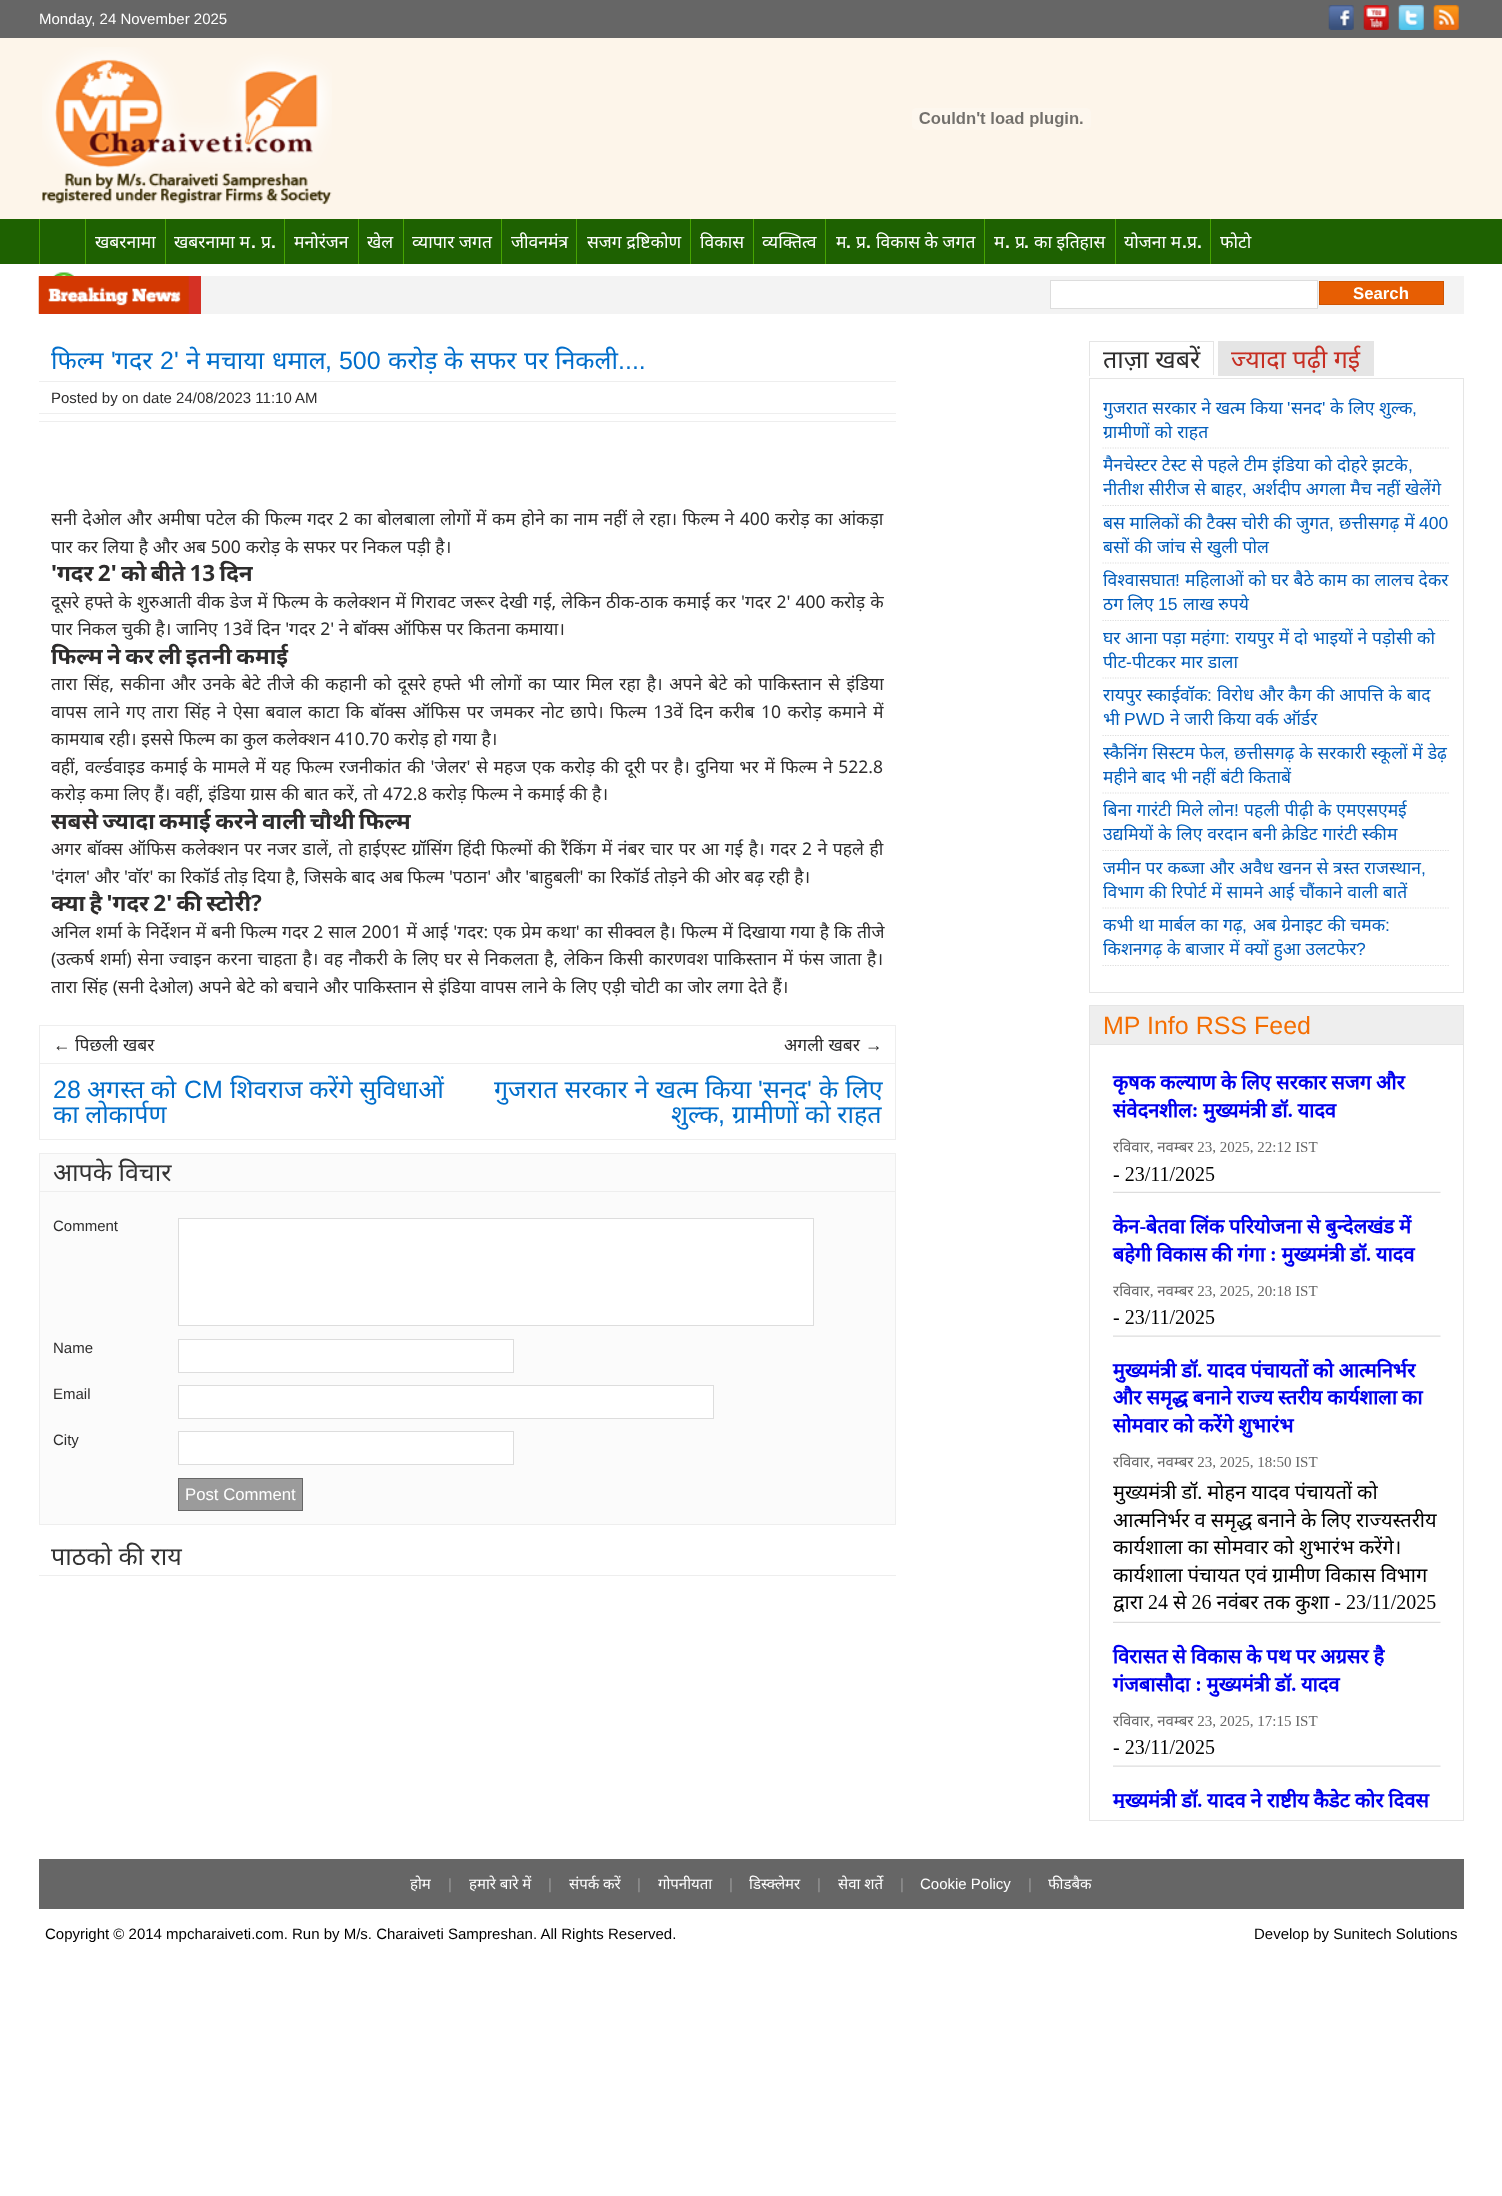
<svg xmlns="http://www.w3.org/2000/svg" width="1502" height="2196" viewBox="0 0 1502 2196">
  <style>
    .t1 { font: 15px Liberation Sans; fill: #fff; }
    .t2 { font: 17.5px Noto Sans; fill: #fff; }
    .t3 { font: bold 17.5px Liberation Sans; fill: #fff; }
    .t4 { font: bold 16.75px Liberation Sans; fill: #fff; }
    .t5 { font: 25px Noto Sans; fill: #016ecb; }
    .t6 { font: 25px Liberation Sans; fill: #016ecb; }
    .t7 { font: 15px Liberation Sans; fill: #2e2d2d; }
    .t8 { font: 17.5px Noto Sans; fill: #2e2d2d; }
    .t9 { font: bold 22.5px Noto Sans; fill: #2e2d2d; }
    .t10 { font: 17.5px Liberation Sans; fill: #2e2d2d; }
    .t11 { font: 25px Noto Sans; fill: #333; }
    .t12 { font: 16.75px Liberation Sans; fill: #fff; }
    .t13 { font: 25px Noto Sans; fill: #2e2d2d; }
    .t14 { font: 25px Noto Sans; fill: #c62e22; }
    .t15 { font: 17.5px Noto Sans; fill: #025ebc; }
    .t16 { font: 17.5px Liberation Sans; fill: #025ebc; }
    .t17 { font: 25px Liberation Sans; fill: #f46e02; }
    .t18 { font: 15px Noto Sans; fill: #fff; }
    .t19 { font: 15px Liberation Sans; fill: #999; }
    .t20 { font: 15px Liberation Sans; fill: #000; }
  </style>
  <rect width="100%" height="100%" fill="#fff"/>
  <rect x="0" y="0" width="1502" height="38" fill="#666"/>
  <text x="39" y="24" class="t1">Monday, 24 November 2025</text>
  <image x="1328" y="5" width="26" height="25" href="images/1.png"/>
  <image x="1363" y="5" width="26" height="25" href="images/2.png"/>
  <image x="1398" y="5" width="26" height="25" href="images/3.png"/>
  <image x="1433" y="5" width="26" height="25" href="images/4.png"/>
  <rect x="0" y="38" width="1502" height="181" fill="#fdf5ea"/>
  <image x="42" y="47" width="290" height="158" href="images/5.png"/>
  <image x="912" y="108" width="179" height="22" href="images/6.png"/>
  <rect x="0" y="219" width="1502" height="45" fill="#1e6101"/>
  <rect x="39" y="219" width="1" height="45" fill="#47a402"/>
  <image x="53" y="272" width="21" height="4" href="images/7.png"/>
  <rect x="85" y="219" width="1" height="45" fill="#47a402"/>
  <text x="95" y="248" class="t2">खबरनामा</text>
  <rect x="165" y="219" width="1" height="45" fill="#47a402"/>
  <text x="174" y="248" word-spacing="0.25" class="t2">खबरनामा म</text>
  <text x="251" y="248" class="t3">.</text>
  <text x="261" y="248" class="t2">प्र</text>
  <text x="271" y="248" class="t3">.</text>
  <rect x="284" y="219" width="1" height="45" fill="#47a402"/>
  <text x="294" y="248" class="t2">मनोरंजन</text>
  <rect x="358" y="219" width="1" height="45" fill="#47a402"/>
  <text x="367" y="248" class="t2">खेल</text>
  <rect x="403" y="219" width="1" height="45" fill="#47a402"/>
  <text x="412" y="248" word-spacing="0.25" class="t2">व्यापार जगत</text>
  <rect x="501" y="219" width="1" height="45" fill="#47a402"/>
  <text x="511" y="248" class="t2">जीवनमंत्र</text>
  <rect x="576" y="219" width="1" height="45" fill="#47a402"/>
  <text x="587" y="248" word-spacing="0.25" class="t2">सजग द्रष्टिकोण</text>
  <rect x="690" y="219" width="1" height="45" fill="#47a402"/>
  <text x="700" y="248" class="t2">विकास</text>
  <rect x="753" y="219" width="1" height="45" fill="#47a402"/>
  <text x="762" y="248" class="t2">व्यक्तित्व</text>
  <rect x="825" y="219" width="1" height="45" fill="#47a402"/>
  <text x="836" y="248" class="t2">म</text>
  <text x="846" y="248" class="t3">.</text>
  <text x="856" y="248" class="t2">प्र</text>
  <text x="866" y="248" class="t3">.</text>
  <text x="876" y="248" class="t2">विकास के जगत</text>
  <rect x="984" y="219" width="1" height="45" fill="#47a402"/>
  <text x="994" y="248" class="t2">म</text>
  <text x="1005" y="248" class="t3">.</text>
  <text x="1015" y="248" class="t2">प्र</text>
  <text x="1024" y="248" class="t3">.</text>
  <text x="1034" y="248" class="t2">का इतिहास</text>
  <rect x="1115" y="219" width="1" height="45" fill="#47a402"/>
  <text x="1124" y="248" word-spacing="0.25" class="t2">योजना म</text>
  <text x="1182" y="248" class="t3">.</text>
  <text x="1187" y="248" class="t2">प्र</text>
  <text x="1197" y="248" class="t3">.</text>
  <rect x="1210" y="219" width="1" height="45" fill="#47a402"/>
  <text x="1220" y="248" class="t2">फोटो</text>
  <rect x="201" y="276" width="1263" height="38" fill="#f3f3f3"/>
  <rect x="39" y="276" width="162" height="38" fill="#d53125"/>
  <image x="38" y="276" width="151" height="38" href="images/8.png"/>
  <rect x="1050.5" y="280.5" width="267" height="28" fill="#fff" stroke="#ddd"/>
  <rect x="1319.5" y="281.5" width="124" height="23" fill="#e75e03" stroke="#ce5402"/>
  <text x="1353" y="299" class="t4">Search</text>
  <rect x="39" y="381" width="857" height="1" fill="#eee"/>
  <text x="51" y="369" class="t5">फिल्म</text>
  <text x="111" y="369" class="t6">'</text>
  <text x="115" y="369" class="t5">गदर</text>
  <text x="160" y="369" class="t6">2'</text>
  <text x="186" y="369" class="t5">ने</text>
  <text x="206" y="369" class="t5">मचाया</text>
  <text x="272" y="369" class="t5">धमाल</text>
  <text x="325" y="369" class="t6">, 500</text>
  <text x="388" y="369" class="t5">करोड़</text>
  <text x="444" y="369" class="t5">के</text>
  <text x="470" y="369" class="t5">सफर</text>
  <text x="524" y="369" class="t5">पर</text>
  <text x="555" y="369" class="t5">निकली</text>
  <text x="618" y="369" class="t6">....</text>
  <rect x="39" y="413" width="857" height="1" fill="#eee"/>
  <text x="51" y="403" class="t7">Posted by on date 24/08/2023 11:10 AM</text>
  <rect x="39" y="421" width="857" height="1" fill="#eee"/>
  <text x="51" y="525" word-spacing="0.8" class="t8">सनी देओल और अमीषा पटेल की फिल्म गदर 2 का बोलबाला लोगों में कम होने का नाम नहीं ले रहा। फिल्म ने 400 करोड़ का आंकड़ा</text>
  <text x="51" y="553" word-spacing="0.25" class="t8">पार कर लिया है और अब 500 करोड़ के सफर पर निकल पड़ी है।</text>
  <text x="51" y="581" word-spacing="-1.5" class="t9">'गदर 2' को बीते 13 दिन</text>
  <text x="51" y="608" word-spacing="0.6" class="t8">दूसरे हफ्ते के शुरुआती वीक डेज में फिल्म के कलेक्शन में गिरावट जरूर देखी गई, लेकिन ठीक-ठाक कमाई कर 'गदर 2' 400 करोड़ के</text>
  <text x="51" y="635" word-spacing="0.2" class="t8">पार निकल चुकी है। जानिए 13वें दिन 'गदर 2' ने बॉक्स ऑफिस पर कितना कमाया।</text>
  <text x="51" y="664" word-spacing="-1.5" class="t9">फिल्म ने कर ली इतनी कमाई</text>
  <text x="51" y="690" word-spacing="1.9" class="t8">तारा सिंह, सकीना और उनके बेटे तीजे की कहानी को दूसरे हफ्ते भी लोगों का प्यार मिल रहा है। अपने बेटे को पाकिस्तान से इंडिया</text>
  <text x="51" y="718" word-spacing="1.9" class="t8">वापस लाने गए तारा सिंह ने ऐसा बवाल काटा कि बॉक्स ऑफिस पर जमकर नोट छापे। फिल्म 13वें दिन करीब 10 करोड़ कमाने में</text>
  <text x="51" y="745" word-spacing="0.25" class="t8">कामयाब रही। इससे फिल्म का कुल कलेक्शन 410.70 करोड़ हो गया है।</text>
  <text x="51" y="773" word-spacing="1.1" class="t8">वहीं, वर्ल्डवाइड कमाई के मामले में यह फिल्म रजनीकांत की 'जेलर' से महज एक करोड़ की दूरी पर है। दुनिया भर में फिल्म ने 522.8</text>
  <text x="51" y="800" word-spacing="0.25" class="t8">करोड़ कमा लिए हैं। वहीं, इंडिया ग्रास की बात करें, तो 472.8 करोड़ फिल्म ने कमाई की है।</text>
  <text x="51" y="829" word-spacing="-1.5" class="t9">सबसे ज्यादा कमाई करने वाली चौथी फिल्म</text>
  <text x="51" y="855" word-spacing="1" class="t8">अगर बॉक्स ऑफिस कलेक्शन पर नजर डालें, तो हाईएस्ट ग्रॉसिंग हिंदी फिल्मों की रैंकिंग में नंबर चार पर आ गई है। गदर 2 ने पहले ही</text>
  <text x="51" y="883" class="t8">'दंगल' और 'वॉर' का रिकॉर्ड तोड़ दिया है, जिसके बाद अब फिल्म 'पठान' और 'बाहुबली' का रिकॉर्ड तोड़ने की ओर बढ़ रही है।</text>
  <text x="51" y="911" word-spacing="-1.5" class="t9">क्या है 'गदर 2' की स्टोरी?</text>
  <text x="51" y="938" word-spacing="0.4" class="t8">अनिल शर्मा के निर्देशन में बनी फिल्म गदर 2 साल 2001 में आई 'गदर: एक प्रेम कथा' का सीक्वल है। फिल्म में दिखाया गया है कि तीजे</text>
  <text x="51" y="965" word-spacing="1" class="t8">(उत्कर्ष शर्मा) सेना ज्वाइन करना चाहता है। वह नौकरी के लिए घर से निकलता है, लेकिन किसी कारणवश पाकिस्तान में फंस जाता है।</text>
  <text x="51" y="993" word-spacing="0.4" class="t8">तारा सिंह (सनी देओल) अपने बेटे को बचाने और पाकिस्तान से इंडिया वापस लाने के लिए एड़ी चोटी का जोर लगा देते हैं।</text>
  <rect x="39.5" y="1025.5" width="856" height="114" fill="none" stroke="#eee"/>
  <rect x="40" y="1063" width="855" height="1" fill="#eee"/>
  <text x="53" y="1051" class="t10">←</text>
  <text x="75" y="1051" word-spacing="0.25" class="t8">पिछली खबर</text>
  <text x="53" y="1098" class="t6">28</text>
  <text x="87" y="1098" class="t5">अगस्त को</text>
  <text x="184" y="1098" class="t6">CM</text>
  <text x="230" y="1098" class="t5">शिवराज करेंगे सुविधाओं</text>
  <text x="53" y="1123" class="t5">का लोकार्पण</text>
  <text x="784" y="1051" word-spacing="0.25" class="t8">अगली खबर</text>
  <text x="865" y="1051" class="t10">→</text>
  <text x="494" y="1098" word-spacing="0.5" class="t5">गुजरात सरकार ने खत्म किया</text>
  <text x="758" y="1098" class="t6">'</text>
  <text x="807" y="1098" class="t6">'</text>
  <text x="819" y="1098" word-spacing="0.5" class="t5">के लिए</text>
  <text x="763" y="1098" class="t5">सनद</text>
  <text x="671" y="1123" class="t5">शुल्क</text>
  <text x="718" y="1123" class="t6">,</text>
  <text x="732" y="1123" class="t5">ग्रामीणों को राहत</text>
  <rect x="39.5" y="1153.5" width="856" height="371" fill="#fbfbfb" stroke="#eee"/>
  <rect x="40" y="1191" width="855" height="1" fill="#eee"/>
  <text x="53" y="1181" class="t11">आपके विचार</text>
  <text x="53" y="1231" class="t7">Comment</text>
  <rect x="178.5" y="1218.5" width="635" height="107" fill="#fff" stroke="#ddd"/>
  <text x="53" y="1353" class="t7">Name</text>
  <rect x="178.5" y="1339.5" width="335" height="33" fill="#fff" stroke="#ddd"/>
  <text x="53" y="1399" class="t7">Email</text>
  <rect x="178.5" y="1385.5" width="535" height="33" fill="#fff" stroke="#ddd"/>
  <text x="53" y="1445" class="t7">City</text>
  <rect x="178.5" y="1431.5" width="335" height="33" fill="#fff" stroke="#ddd"/>
  <rect x="178.5" y="1478.5" width="124" height="32" fill="#9b9b9b" stroke="#666"/>
  <text x="185" y="1500" class="t12">Post Comment</text>
  <rect x="39" y="1575" width="857" height="1" fill="#eee"/>
  <text x="51" y="1565" class="t11">पाठको की राय</text>
  <text x="1103" y="368" class="t13">ताज़ा खबरें</text>
  <rect x="1089" y="341" width="125" height="1" fill="#e5e5e5"/>
  <rect x="1213" y="341" width="1" height="35" fill="#e5e5e5"/>
  <rect x="1213" y="375" width="1" height="1" fill="#fff"/>
  <rect x="1089" y="341" width="1" height="35" fill="#e5e5e5"/>
  <rect x="1218" y="341" width="156" height="35" fill="#e5e5e5"/>
  <text x="1231" y="368" class="t14">ज्यादा पढ़ी गई</text>
  <rect x="1089.5" y="378.5" width="374" height="614" fill="none" stroke="#e5e5e5"/>
  <path d="M1102.5 448H1450" fill="none" stroke="#ddd" stroke-width="1.2" stroke-dasharray="1.25 1.25"/>
  <text x="1103" y="414" word-spacing="0.25" class="t15">गुजरात सरकार ने खत्म किया</text>
  <text x="1287" y="414" class="t16">'</text>
  <text x="1322" y="414" class="t16">'</text>
  <text x="1330" y="414" word-spacing="0.25" class="t15">के लिए शुल्क</text>
  <text x="1291" y="414" class="t15">सनद</text>
  <text x="1412" y="414" class="t16">,</text>
  <text x="1103" y="438" word-spacing="0.25" class="t15">ग्रामीणों को राहत</text>
  <path d="M1102.5 505.5H1450" fill="none" stroke="#ddd" stroke-width="1.2" stroke-dasharray="1.25 1.25"/>
  <text x="1103" y="471" word-spacing="0.25" class="t15">मैनचेस्टर टेस्ट से पहले टीम इंडिया को दोहरे झटके</text>
  <text x="1408" y="471" class="t16">,</text>
  <text x="1103" y="495" word-spacing="0.25" class="t15">नीतीश सीरीज से बाहर</text>
  <text x="1242" y="495" class="t16">,</text>
  <text x="1252" y="495" word-spacing="0.25" class="t15">अर्शदीप अगला मैच नहीं खेलेंगे</text>
  <path d="M1102.5 563H1450" fill="none" stroke="#ddd" stroke-width="1.2" stroke-dasharray="1.25 1.25"/>
  <text x="1103" y="529" word-spacing="0.25" class="t15">बस मालिकों की टैक्स चोरी की जुगत</text>
  <text x="1329" y="529" class="t16">,</text>
  <text x="1339" y="529" word-spacing="0.25" class="t15">छत्तीसगढ़ में</text>
  <text x="1419" y="529" class="t16">400</text>
  <text x="1103" y="553" word-spacing="0.25" class="t15">बसों की जांच से खुली पोल</text>
  <path d="M1102.5 620.5H1450" fill="none" stroke="#ddd" stroke-width="1.2" stroke-dasharray="1.25 1.25"/>
  <text x="1103" y="586" class="t15">विश्वासघात</text>
  <text x="1175" y="586" class="t16">!</text>
  <text x="1185" y="586" word-spacing="0.25" class="t15">महिलाओं को घर बैठे काम का लालच देकर</text>
  <text x="1103" y="610" class="t15">ठग लिए</text>
  <text x="1158" y="610" class="t16">15</text>
  <text x="1183" y="610" class="t15">लाख रुपये</text>
  <path d="M1102.5 678H1450" fill="none" stroke="#ddd" stroke-width="1.2" stroke-dasharray="1.25 1.25"/>
  <text x="1103" y="644" word-spacing="0.25" class="t15">घर आना पड़ा महंगा</text>
  <text x="1225" y="644" class="t16">:</text>
  <text x="1235" y="644" word-spacing="0.25" class="t15">रायपुर में दो भाइयों ने पड़ोसी को</text>
  <text x="1103" y="668" class="t15">पीट</text>
  <text x="1126" y="668" class="t16">-</text>
  <text x="1132" y="668" word-spacing="0.25" class="t15">पीटकर मार डाला</text>
  <path d="M1102.5 735.5H1450" fill="none" stroke="#ddd" stroke-width="1.2" stroke-dasharray="1.25 1.25"/>
  <text x="1103" y="701" word-spacing="0.25" class="t15">रायपुर स्काईवॉक</text>
  <text x="1207" y="701" class="t16">:</text>
  <text x="1217" y="701" word-spacing="0.25" class="t15">विरोध और कैग की आपत्ति के बाद</text>
  <text x="1103" y="725" class="t15">भी</text>
  <text x="1124" y="725" class="t16">PWD</text>
  <text x="1170" y="725" class="t15">ने जारी किया वर्क ऑर्डर</text>
  <path d="M1102.5 793H1450" fill="none" stroke="#ddd" stroke-width="1.2" stroke-dasharray="1.25 1.25"/>
  <text x="1103" y="759" word-spacing="0.25" class="t15">स्कैनिंग सिस्टम फेल</text>
  <text x="1224" y="759" class="t16">,</text>
  <text x="1234" y="759" word-spacing="0.25" class="t15">छत्तीसगढ़ के सरकारी स्कूलों में डेढ़</text>
  <text x="1103" y="783" word-spacing="0.25" class="t15">महीने बाद भी नहीं बंटी किताबें</text>
  <path d="M1102.5 850.5H1450" fill="none" stroke="#ddd" stroke-width="1.2" stroke-dasharray="1.25 1.25"/>
  <text x="1103" y="816" word-spacing="0.25" class="t15">बिना गारंटी मिले लोन</text>
  <text x="1234" y="816" class="t16">!</text>
  <text x="1244" y="816" word-spacing="0.25" class="t15">पहली पीढ़ी के एमएसएमई</text>
  <text x="1103" y="840" word-spacing="0.25" class="t15">उद्यमियों के लिए वरदान बनी क्रेडिट गारंटी स्कीम</text>
  <path d="M1102.5 908H1450" fill="none" stroke="#ddd" stroke-width="1.2" stroke-dasharray="1.25 1.25"/>
  <text x="1103" y="874" word-spacing="0.25" class="t15">जमीन पर कब्जा और अवैध खनन से त्रस्त राजस्थान</text>
  <text x="1421" y="874" class="t16">,</text>
  <text x="1103" y="898" word-spacing="0.25" class="t15">विभाग की रिपोर्ट में सामने आई चौंकाने वाली बातें</text>
  <path d="M1102.5 965.5H1450" fill="none" stroke="#ddd" stroke-width="1.2" stroke-dasharray="1.25 1.25"/>
  <text x="1103" y="931" word-spacing="0.25" class="t15">कभी था मार्बल का गढ़</text>
  <text x="1253" y="931" word-spacing="0.25" class="t15">अब ग्रेनाइट की चमक</text>
  <text x="1385" y="931" class="t16">:</text>
  <text x="1242" y="931" class="t16">,</text>
  <text x="1103" y="955" word-spacing="0.25" class="t15">किशनगढ़ के बाजार में क्यों हुआ उलटफेर</text>
  <text x="1356" y="955" class="t16">?</text>
  <rect x="1089.5" y="1005.5" width="374" height="815" fill="none" stroke="#e5e5e5"/>
  <rect x="1090" y="1006" width="373" height="38" fill="#eee"/>
  <rect x="1090" y="1044" width="373" height="1" fill="#e5e5e5"/>
  <text x="1103" y="1034" class="t17">MP Info RSS Feed</text>
  <image x="1112" y="1070" width="329" height="738" href="images/9.png"/>
  <rect x="39" y="1859" width="1425" height="50" fill="#666"/>
  <text x="410" y="1889" class="t18">होम</text>
  <text x="448" y="1889" class="t19">|</text>
  <text x="469" y="1889" class="t18">हमारे बारे में</text>
  <text x="548" y="1889" class="t19">|</text>
  <text x="569" y="1889" class="t18">संपर्क करें</text>
  <text x="637" y="1889" class="t19">|</text>
  <text x="658" y="1889" class="t18">गोपनीयता</text>
  <text x="729" y="1889" class="t19">|</text>
  <text x="749" y="1889" class="t18">डिस्क्लेमर</text>
  <text x="817" y="1889" class="t19">|</text>
  <text x="838" y="1889" class="t18">सेवा शर्ते</text>
  <text x="900" y="1889" class="t19">|</text>
  <text x="920" y="1889" class="t1">Cookie Policy</text>
  <text x="1028" y="1889" class="t19">|</text>
  <text x="1048" y="1889" class="t18">फीडबैक</text>
  <text x="45" y="1939" class="t20">Copyright © 2014 mpcharaiveti.com. Run by M/s. Charaiveti Sampreshan. All Rights Reserved.</text>
  <text x="1254" y="1939" class="t20">Develop by Sunitech Solutions</text>
</svg>
